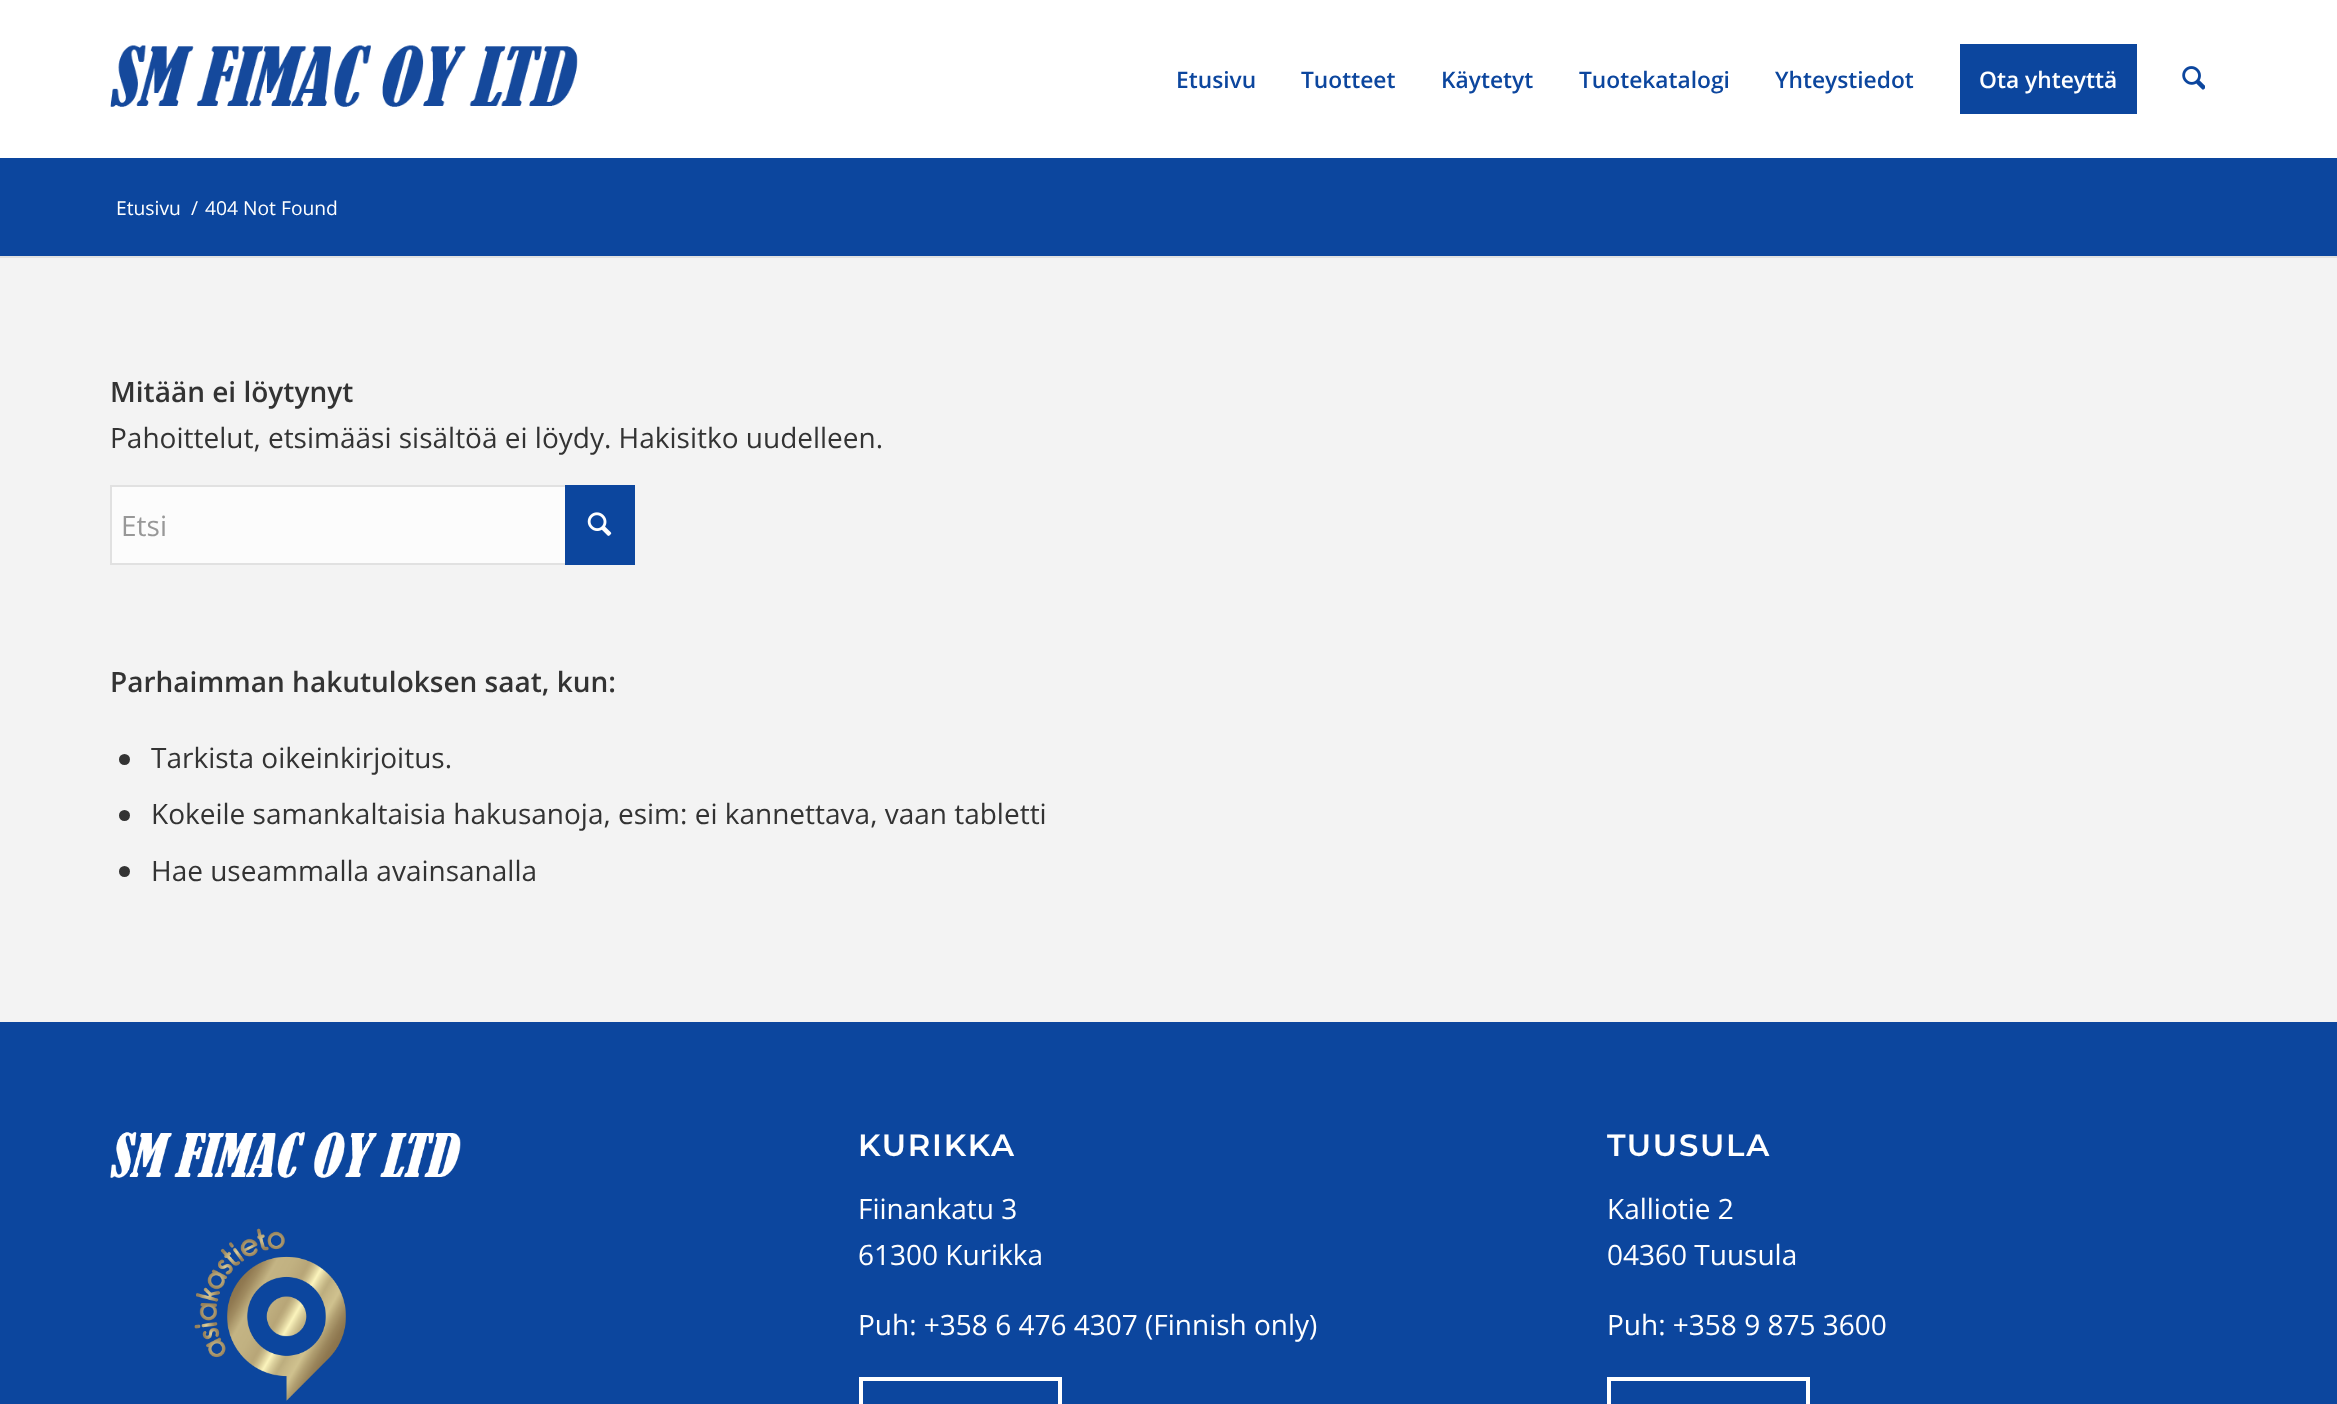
<svg xmlns="http://www.w3.org/2000/svg" width="2337" height="1404" viewBox="0 0 2337 1404">
  <style>
    .t1 { font: 600 22.75px Open Sans; fill: #0c469e; }
    .t2 { font: 600 22.75px Open Sans; fill: #fff; }
    .t3 { font: 19.25px Open Sans; fill: #fff; }
    .t4 { font: 600 28px Open Sans; fill: #333; }
    .t5 { font: 28px Open Sans; fill: #333; }
    .t6 { font: 28px Open Sans; fill: #989898; }
    .t7 { font: 600 30.75px Montserrat; letter-spacing: 1.75px; fill: #fff; }
    .t8 { font: 28px Open Sans; fill: #fff; }
  </style>
  <defs>
    <clipPath id="clip1"><rect x="1607" y="1103" width="621" height="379"/></clipPath>
  </defs>
  <rect width="100%" height="100%" fill="#f3f3f3"/>
  <rect x="0" y="0" width="2337" height="158" fill="#fff"/>
  <image x="110" y="45" width="468" height="62" href="images/1.png"/>
  <text x="1176" y="88" class="t1">Etusivu</text>
  <text x="1301" y="88" class="t1">Tuotteet</text>
  <text x="1441" y="88" class="t1">Käytetyt</text>
  <text x="1579" y="88" class="t1">Tuotekatalogi</text>
  <text x="1775" y="88" class="t1">Yhteystiedot</text>
  <rect x="1960" y="44" width="177" height="70" fill="#0c469e"/>
  <text x="1979" y="88" class="t2">Ota yhteyttä</text>
  <image x="2182" y="66" width="23" height="24" href="images/2.png"/>
  <rect x="0" y="158" width="2337" height="98" fill="#0c469e"/>
  <text x="116" y="215" class="t3">Etusivu</text>
  <text x="191" y="215" class="t3">/</text>
  <text x="205" y="215" class="t3">404 Not Found</text>
  <rect x="0" y="256" width="2337" height="2" fill="#e1e1e1"/>
  <text x="110" y="402" class="t4">Mitään ei löytynyt</text>
  <text x="110" y="448" class="t5">Pahoittelut, etsimääsi sisältöä ei löydy. Hakisitko uudelleen.</text>
  <rect x="112" y="487" width="453" height="76" fill="#fcfcfc"/>
  <rect x="111" y="486" width="523" height="78" fill="none" stroke="#e1e1e1" stroke-width="2"/>
  <rect x="565" y="485" width="70" height="80" fill="#0c469e"/>
  <text x="121" y="536" class="t6">Etsi</text>
  <image x="587" y="512" width="25" height="24" href="images/3.png"/>
  <text x="110" y="692" class="t4">Parhaimman hakutuloksen saat, kun:</text>
  <circle cx="124.5" cy="759.5" r="5.5" fill="#333"/>
  <text x="151" y="768" class="t5">Tarkista oikeinkirjoitus.</text>
  <circle cx="124.5" cy="815.5" r="5.5" fill="#333"/>
  <text x="151" y="824" class="t5">Kokeile samankaltaisia hakusanoja, esim: ei kannettava, vaan tabletti</text>
  <circle cx="124.5" cy="871.5" r="5.5" fill="#333"/>
  <text x="151" y="881" class="t5">Hae useammalla avainsanalla</text>
  <rect x="0" y="1022" width="2337" height="382" fill="#0c469e"/>
  <image x="110" y="1132" width="351" height="46" href="images/4.png"/>
  <image x="194" y="1228" width="152" height="173" href="images/5.png"/>
  <text x="858" y="1156" class="t7">KURIKKA</text>
  <text x="858" y="1219" class="t8">Fiinankatu 3</text>
  <text x="858" y="1265" class="t8">61300 Kurikka</text>
  <text x="858" y="1335" class="t8">Puh: +358 6 476 4307 (Finnish only)</text>
  <rect x="861" y="1379" width="199" height="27" fill="none" stroke="#fff" stroke-width="4"/>
  <g clip-path="url(#clip1)">
    <text x="1607" y="1156" class="t7">TUUSULA</text>
  </g>
  <text x="1607" y="1219" class="t8">Kalliotie 2</text>
  <text x="1607" y="1265" class="t8">04360 Tuusula</text>
  <text x="1607" y="1335" class="t8">Puh: +358 9 875 3600</text>
  <rect x="1609" y="1379" width="199" height="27" fill="none" stroke="#fff" stroke-width="4"/>
</svg>
